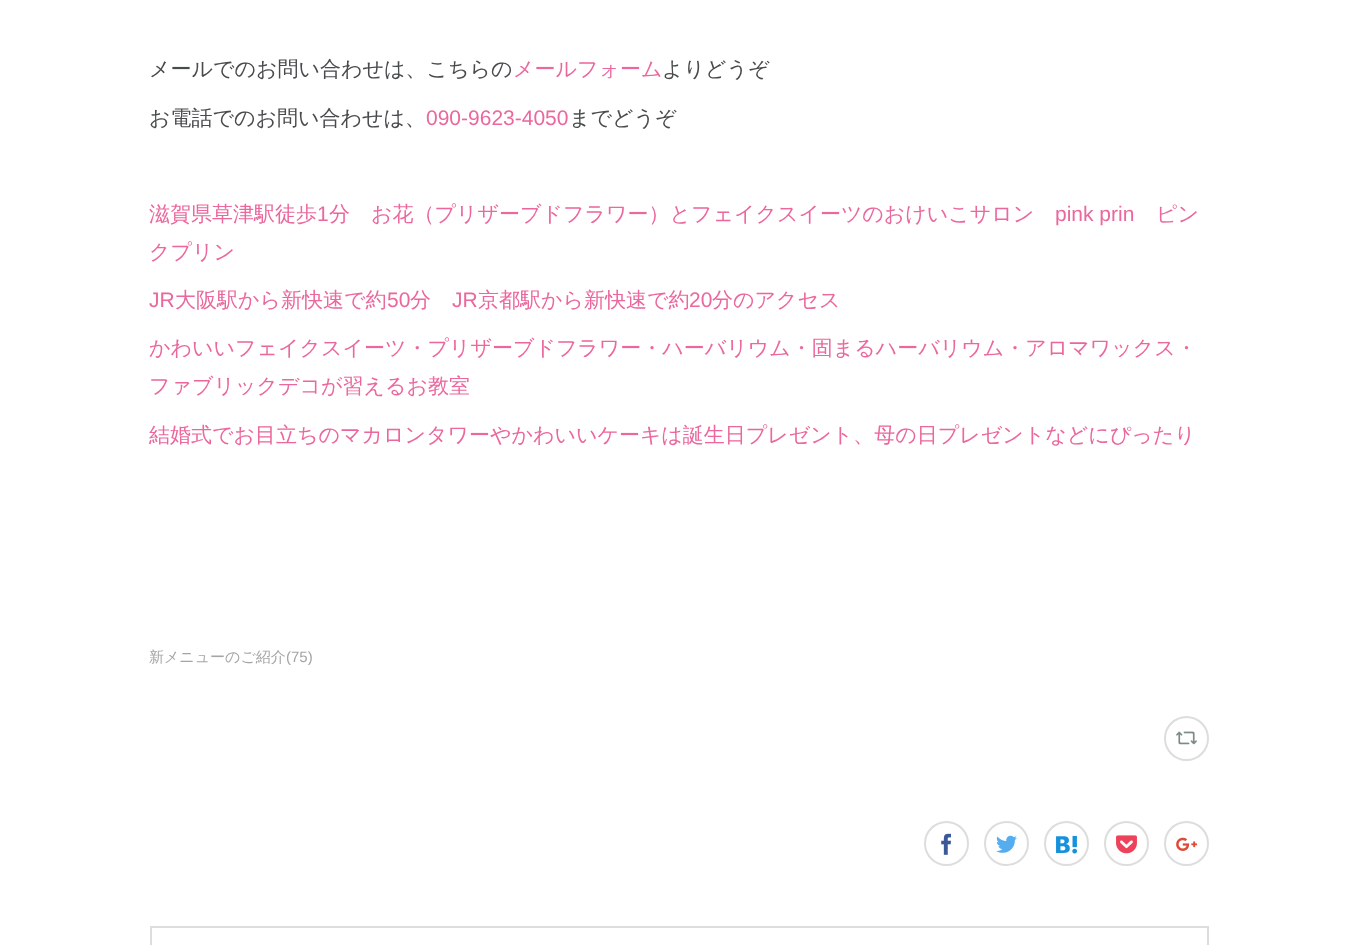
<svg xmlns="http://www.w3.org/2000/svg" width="1358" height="945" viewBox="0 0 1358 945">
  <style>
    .t1 { font: 500 21px WenQuanYi Zen Hei; fill: #484b4c; }
    .t2 { font: 500 21px WenQuanYi Zen Hei; fill: #eb679d; }
    .t3 { font: 21px Liberation Sans; fill: #eb679d; }
    .t4 { font: 500 15px WenQuanYi Zen Hei; fill: #a4a5a6; }
    .t5 { font: 15px Liberation Sans; fill: #a4a5a6; }
  </style>
  <rect width="100%" height="100%" fill="#fff"/>
  <text x="149" y="76" class="t1">メールでのお問い合わせは、こちらの</text>
  <text x="513" y="76" class="t2">メールフォーム</text>
  <text x="662" y="76" class="t1">よりどうぞ</text>
  <text x="149" y="125" class="t1">お電話でのお問い合わせは、</text>
  <text x="426" y="125" class="t3">090-9623-4050</text>
  <text x="569" y="125" class="t1">までどうぞ</text>
  <text x="149" y="221" class="t2">滋賀県草津駅徒歩</text>
  <text x="317" y="221" class="t3">1</text>
  <text x="329" y="221" class="t2">分　お花（プリザーブドフラワー）とフェイクスイーツのおけいこサロン</text>
  <text x="1055" y="221" class="t3">pink prin</text>
  <text x="1156" y="221" class="t2">ピン</text>
  <text x="149" y="259" class="t2">クプリン</text>
  <text x="149" y="307" class="t3">JR</text>
  <text x="175" y="307" class="t2">大阪駅から新快速で約</text>
  <text x="387" y="307" class="t3">50</text>
  <text x="410" y="307" class="t2">分</text>
  <text x="452" y="307" class="t3">JR</text>
  <text x="478" y="307" class="t2">京都駅から新快速で約</text>
  <text x="689" y="307" class="t3">20</text>
  <text x="712" y="307" class="t2">分のアクセス</text>
  <text x="149" y="355" class="t2">かわいいフェイクスイーツ・プリザーブドフラワー・ハーバリウム・固まるハーバリウム・アロマワックス・</text>
  <text x="149" y="393" class="t2">ファブリックデコが習えるお教室</text>
  <text x="149" y="442" class="t2">結婚式でお目立ちのマカロンタワーやかわいいケーキは誕生日プレゼント、母の日プレゼントなどにぴったり</text>
  <text x="149" y="662" class="t4">新メニューのご紹介</text>
  <text x="286" y="662" class="t5">(75)</text>
  <circle cx="1186.5" cy="738.5" r="21.5" fill="none" stroke="#ddd" stroke-width="2"/>
  <image x="1176" y="731" width="21" height="14" href="images/1.png"/>
  <circle cx="946.5" cy="843.5" r="21.5" fill="none" stroke="#ddd" stroke-width="2"/>
  <image x="941" y="833" width="10" height="22" href="images/2.png"/>
  <circle cx="1006.5" cy="843.5" r="21.5" fill="none" stroke="#ddd" stroke-width="2"/>
  <image x="996" y="835" width="21" height="18" href="images/3.png"/>
  <circle cx="1066.5" cy="843.5" r="21.5" fill="none" stroke="#ddd" stroke-width="2"/>
  <image x="1056" y="835" width="21" height="19" href="images/4.png"/>
  <circle cx="1126.5" cy="843.5" r="21.5" fill="none" stroke="#ddd" stroke-width="2"/>
  <image x="1116" y="835" width="21" height="19" href="images/5.png"/>
  <circle cx="1186.5" cy="843.5" r="21.5" fill="none" stroke="#ddd" stroke-width="2"/>
  <image x="1176" y="837" width="22" height="14" href="images/6.png"/>
  <rect x="151" y="927" width="1057" height="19" fill="none" stroke="#ddd" stroke-width="2"/>
</svg>
